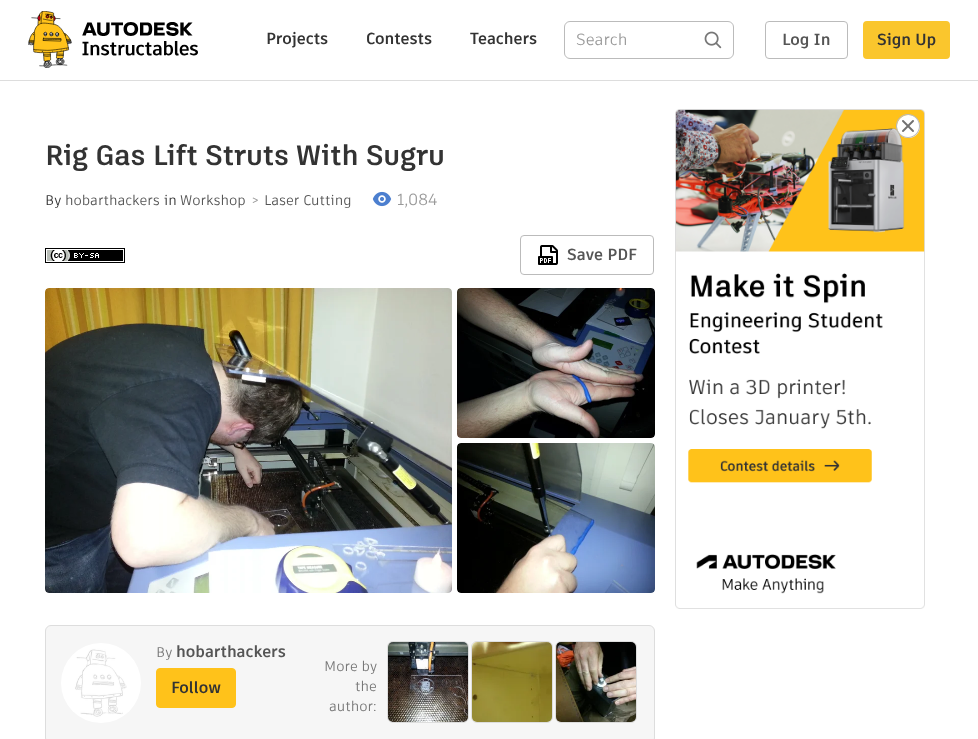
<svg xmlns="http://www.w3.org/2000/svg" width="978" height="739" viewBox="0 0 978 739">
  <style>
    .t1 { font: bold 16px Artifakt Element; fill: #333; }
    .t2 { font: 16px Artifakt Element; fill: #999; }
    .t3 { font: bold 16px Artifakt Element; fill: #555; }
    .t4 { font: bold 28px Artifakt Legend; fill: #333; }
    .t5 { font: 14px Artifakt Element; fill: #333; }
    .t6 { font: 14px Artifakt Element; fill: #555; }
    .t7 { font: 14px Artifakt Element; fill: #999; }
    .t8 { font: 14px Artifakt Element; fill: #777; }
  </style>
  <rect width="100%" height="100%" fill="#fff"/>
  <rect x="0" y="80" width="978" height="1" fill="#ddd"/>
  <image x="28" y="11" width="170" height="57" href="images/1.png"/>
  <text x="266" y="44" class="t1">Projects</text>
  <text x="366" y="44" class="t1">Contests</text>
  <text x="470" y="44" class="t1">Teachers</text>
  <rect x="564.5" y="21.5" width="169" height="37" rx="5.5" fill="none" stroke="#bbb"/>
  <text x="576" y="45" class="t2">Search</text>
  <image x="704" y="31" width="18" height="18" href="images/2.png"/>
  <rect x="765.5" y="21.5" width="82" height="37" rx="3.5" fill="none" stroke="#bbb"/>
  <text x="782" y="45" class="t3">Log In</text>
  <rect x="864" y="22" width="85" height="36" rx="3" fill="#fac62d" stroke="#fac62d" stroke-width="2"/>
  <text x="877" y="45" class="t1">Sign Up</text>
  <text x="45" y="165" class="t4">Rig Gas Lift Struts With Sugru</text>
  <text x="45" y="205" class="t5">By</text>
  <text x="65" y="205" class="t6">hobarthackers</text>
  <text x="164" y="205" class="t5">in</text>
  <text x="180" y="205" class="t6">Workshop</text>
  <text x="251" y="205" class="t7">&gt;</text>
  <text x="264" y="205" class="t6">Laser Cutting</text>
  <image x="372" y="191" width="20" height="16" href="images/3.png"/>
  <text x="397" y="205" class="t2">1,084</text>
  <image x="45" y="248" width="80" height="15" href="images/4.png"/>
  <rect x="520.5" y="235.5" width="133" height="39" rx="3.5" fill="none" stroke="#bbb"/>
  <image x="538" y="245" width="20" height="20" href="images/5.png"/>
  <text x="567" y="260" class="t3">Save PDF</text>
  <image x="45" y="288" width="407" height="305" href="images/6.png"/>
  <image x="457" y="288" width="198" height="150" href="images/7.png"/>
  <image x="457" y="443" width="198" height="150" href="images/8.png"/>
  <rect x="45.5" y="625.5" width="609" height="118" rx="5.5" fill="#f6f6f6" stroke="#ddd"/>
  <image x="61" y="643" width="80" height="80" href="images/9.png"/>
  <text x="156" y="657" class="t8">By</text>
  <text x="176" y="657" class="t3">hobarthackers</text>
  <rect x="156.5" y="668.5" width="79" height="39" rx="3.5" fill="#ffc21a" stroke="#ffc21a"/>
  <text x="171" y="693" class="t1">Follow</text>
  <text x="324" y="671" class="t8">More by</text>
  <text x="355" y="691" class="t8">the</text>
  <text x="329" y="711" class="t8">author:</text>
  <rect x="387.5" y="641.5" width="81" height="81" rx="5.5" fill="none" stroke="#ddd"/>
  <image x="388" y="642" width="80" height="80" href="images/10.png"/>
  <rect x="471.5" y="641.5" width="81" height="81" rx="5.5" fill="none" stroke="#ddd"/>
  <image x="472" y="642" width="80" height="80" href="images/11.png"/>
  <rect x="555.5" y="641.5" width="81" height="81" rx="5.5" fill="none" stroke="#ddd"/>
  <image x="556" y="642" width="80" height="80" href="images/12.png"/>
  <image x="675" y="109" width="250" height="500" href="images/13.png"/>
  <image x="896" y="114" width="24" height="24" href="images/14.png"/>
</svg>
